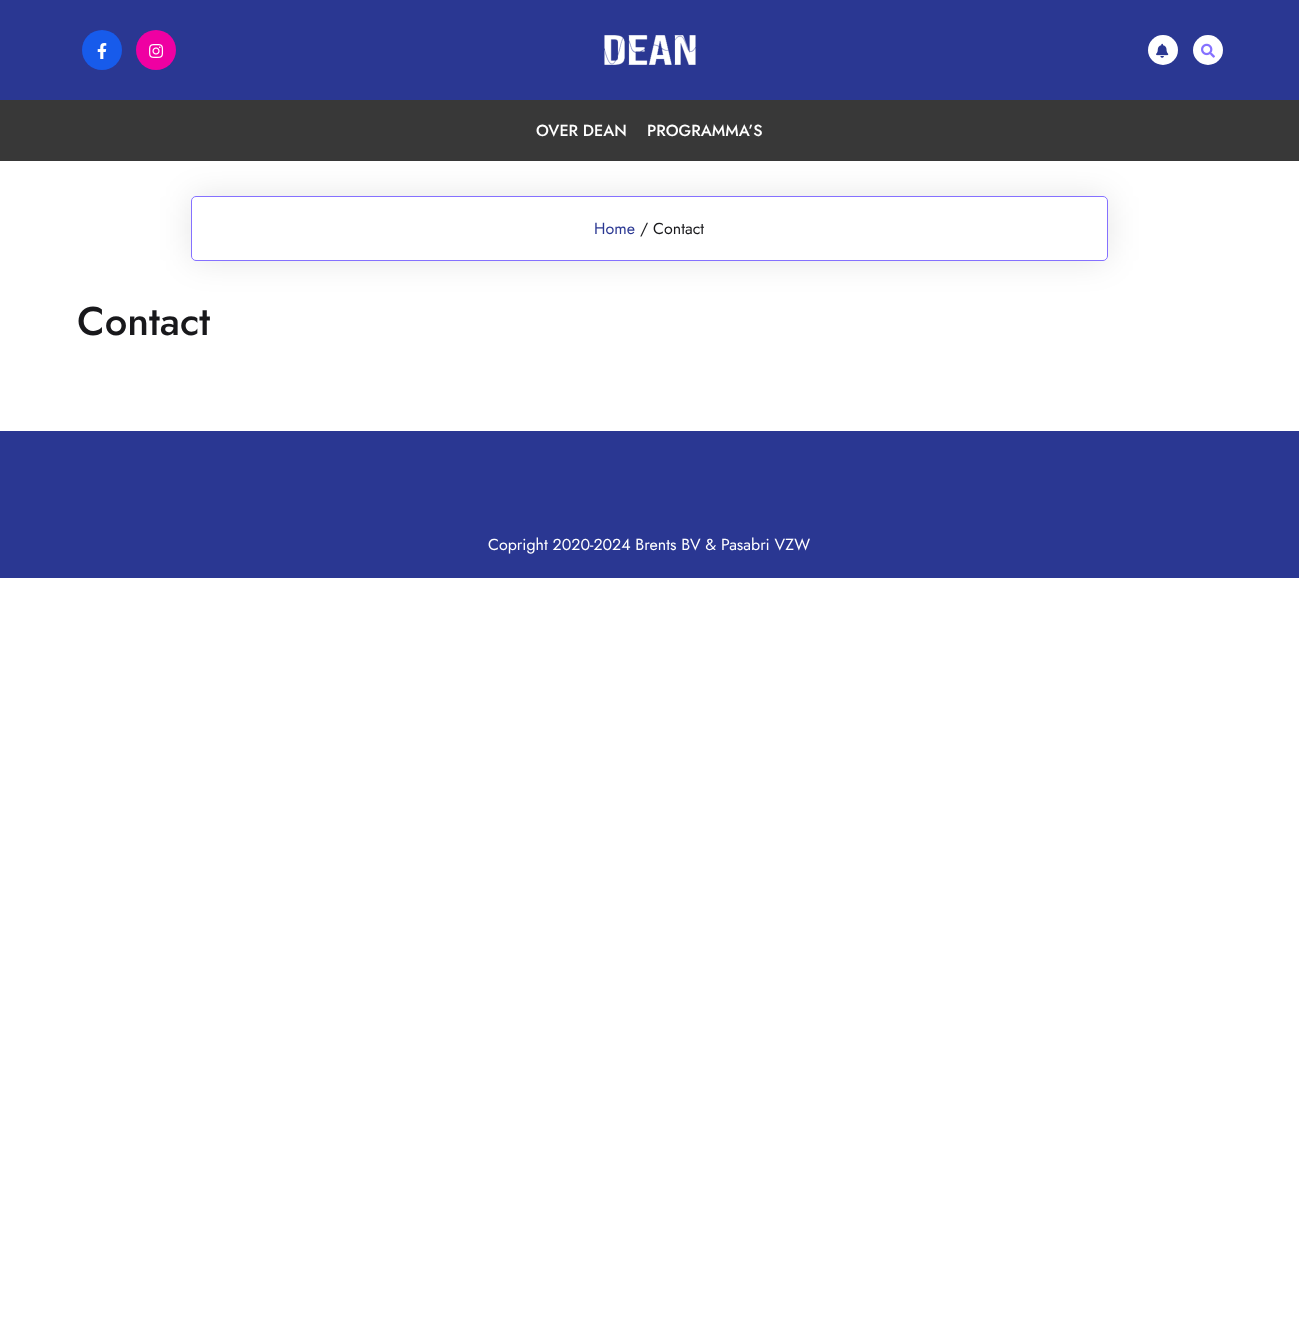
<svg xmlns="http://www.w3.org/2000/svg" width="1299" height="1337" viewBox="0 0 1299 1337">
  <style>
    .t1 { font: 500 16px Jost; fill: #fff; }
    .t2 { font: 16px Jost; fill: #2a3792; }
    .t3 { font: 16px Jost; fill: #18181b; }
    .t4 { font: 500 40px Jost; fill: #18181b; }
    .t5 { font: 16px Jost; fill: #fff; }
  </style>
  <defs>
    <clipPath id="clip1"><path d="M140 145H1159V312H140ZM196 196H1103C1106 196 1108 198 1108 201V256C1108 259 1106 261 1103 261H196C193 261 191 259 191 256V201C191 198 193 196 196 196Z" clip-rule="evenodd"/></clipPath>
  </defs>
  <rect width="100%" height="100%" fill="#fff"/>
  <rect x="0" y="0" width="1299" height="100" fill="#2a3792"/>
  <circle cx="102" cy="50" r="20" fill="#175beb"/>
  <image x="97" y="43" width="10" height="16" href="images/1.png"/>
  <circle cx="156" cy="50" r="20" fill="#ef00a2"/>
  <image x="149" y="44" width="15" height="14" href="images/2.png"/>
  <image x="604" y="35" width="92" height="30" href="images/3.png"/>
  <circle cx="1163" cy="50" r="15" fill="#fff"/>
  <image x="1156" y="43" width="13" height="15" href="images/4.png"/>
  <circle cx="1208" cy="50" r="15" fill="#fff"/>
  <image x="1201" y="43" width="14" height="15" href="images/5.png"/>
  <g clip-path="url(#clip1)">
    <rect x="191" y="196" width="917" height="65" rx="5" fill="#0000001a" filter="blur(16.5px)"/>
  </g>
  <rect x="0" y="100" width="1299" height="61" fill="#383838"/>
  <text x="536" y="136" class="t1">OVER DEAN</text>
  <text x="647" y="136" class="t1">PROGRAMMA’S</text>
  <rect x="191.5" y="196.5" width="916" height="64" rx="4.5" fill="none" stroke="#8571ff"/>
  <text x="594" y="234" class="t2">Home</text>
  <text x="640" y="234" class="t3">/ Contact</text>
  <text x="77" y="335" class="t4">Contact</text>
  <rect x="0" y="431" width="1299" height="147" fill="#2a3792"/>
  <text x="488" y="550" class="t5">Copright 2020-2024 Brents BV &amp; Pasabri VZW</text>
</svg>
